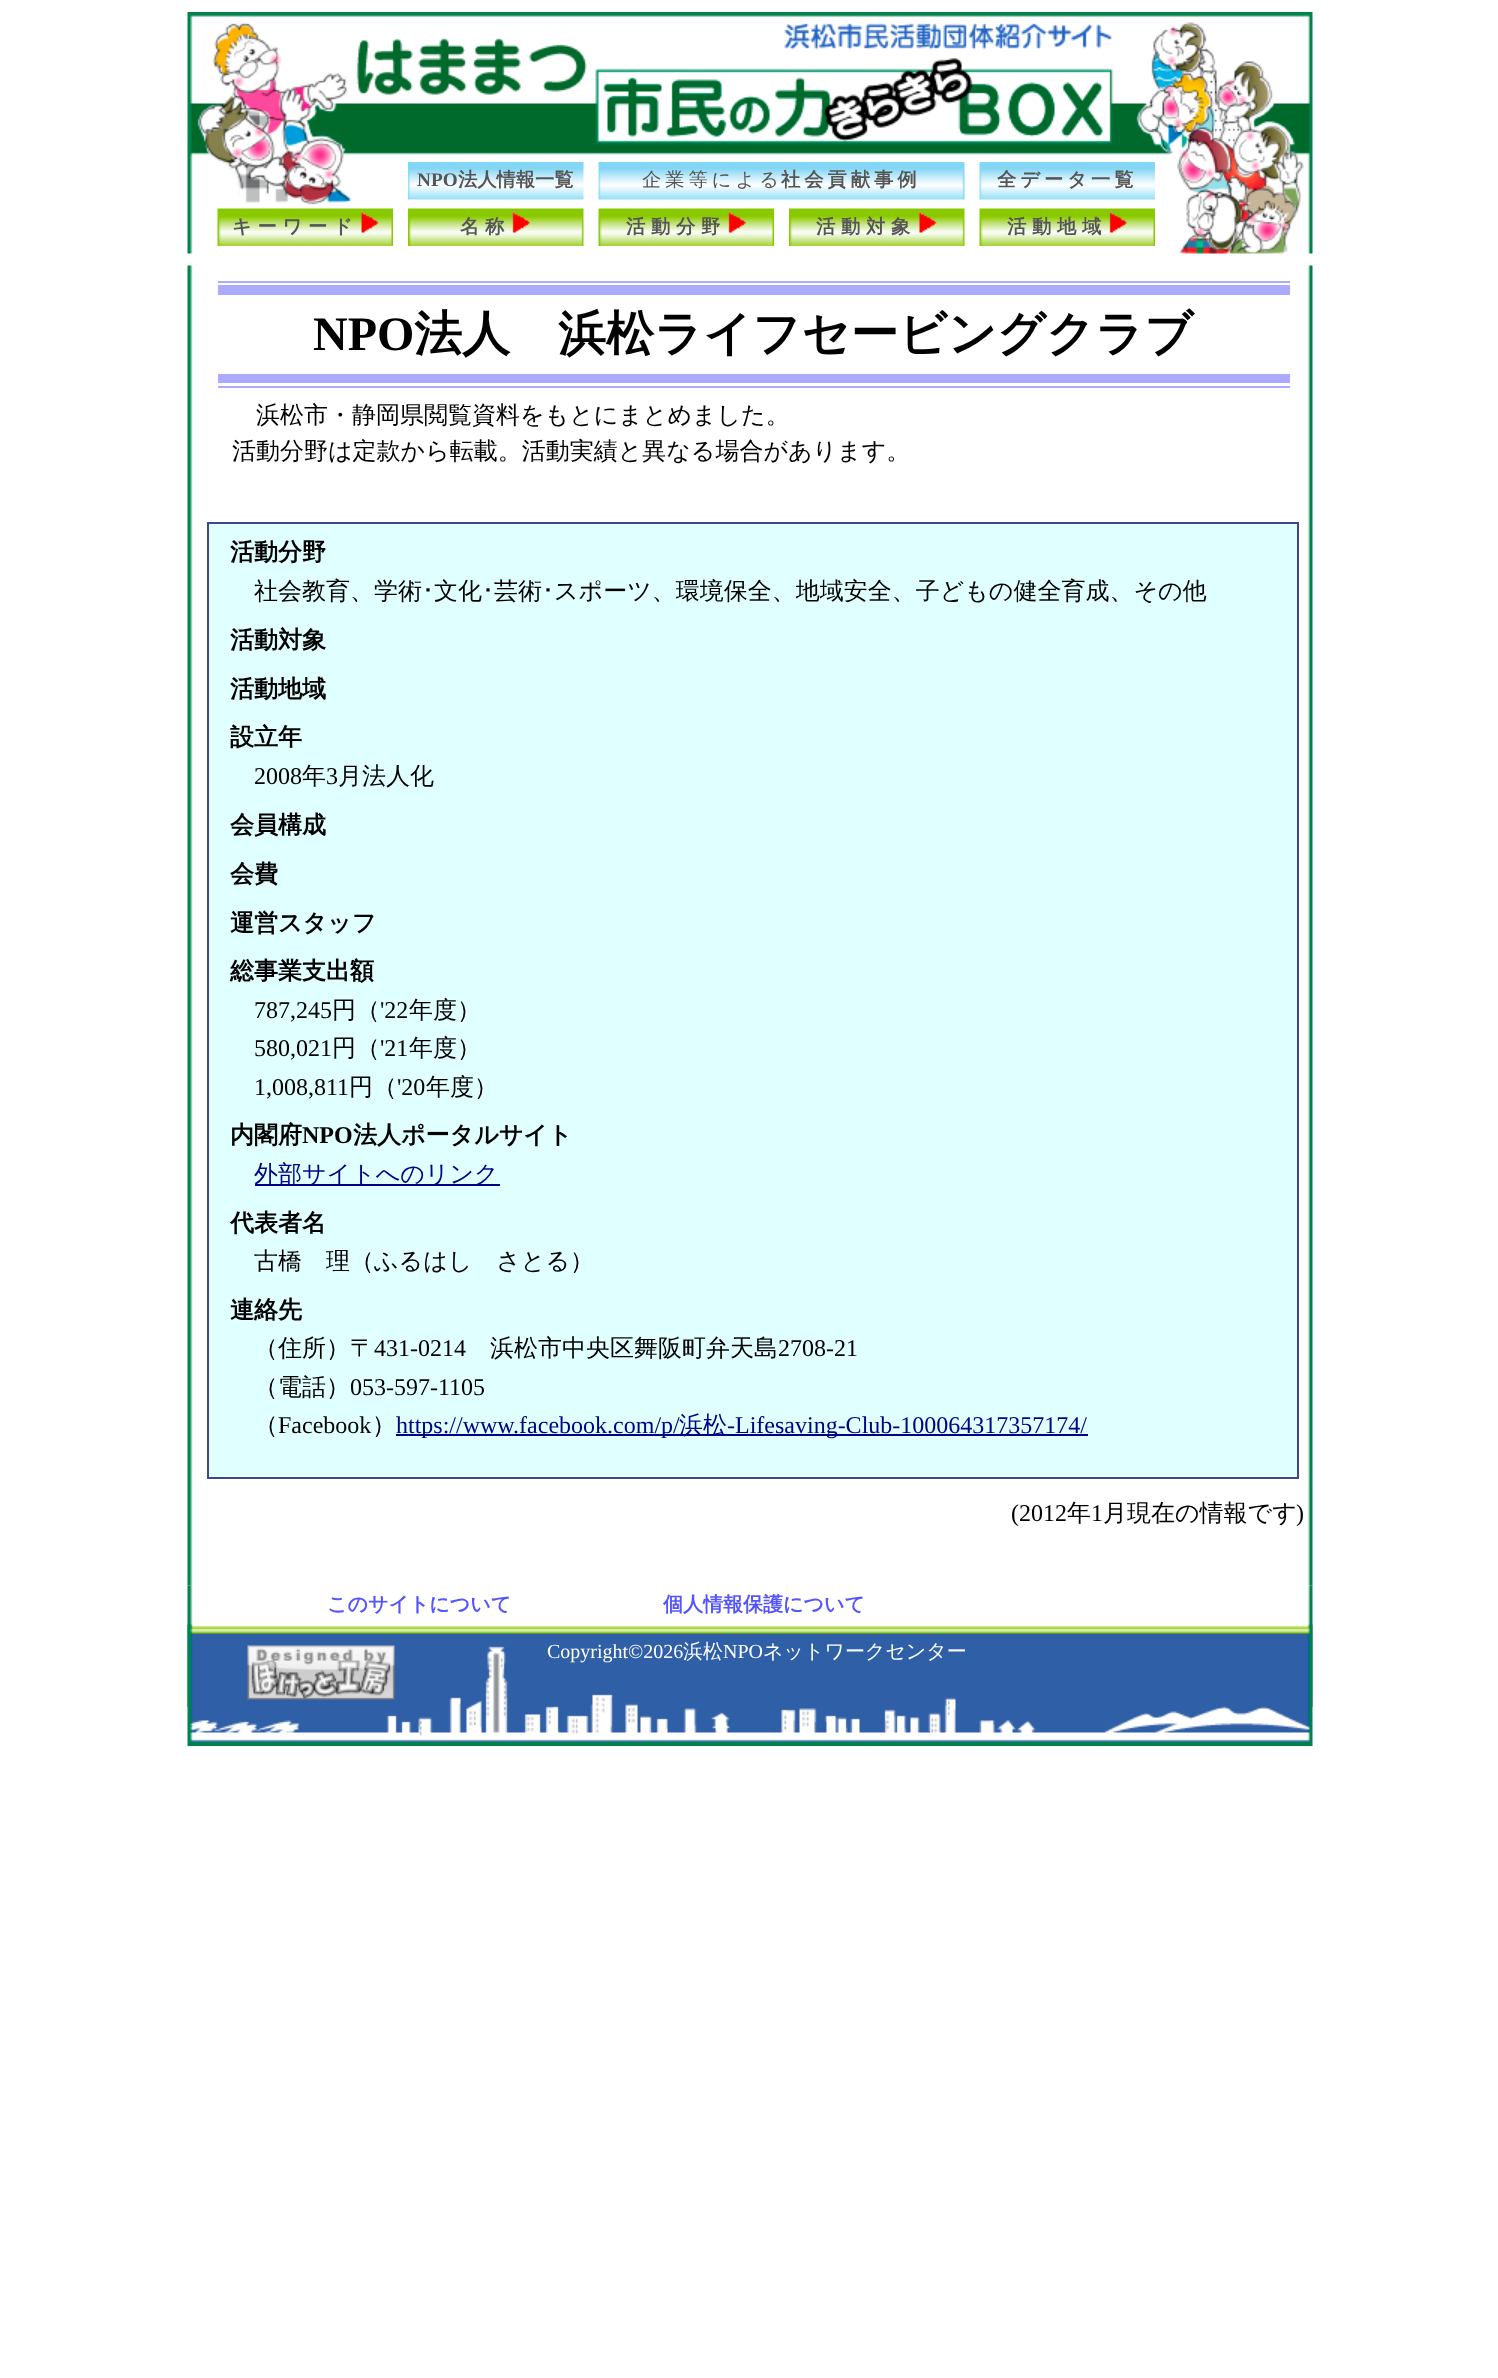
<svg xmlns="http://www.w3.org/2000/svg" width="1498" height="2378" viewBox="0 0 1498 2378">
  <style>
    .t1 { font: bold 19.25px Liberation Serif; fill: #555; }
    .t2 { font: bold 19.25px WenQuanYi Zen Hei; fill: #555; }
    .t3 { font: 500 19.25px WenQuanYi Zen Hei; letter-spacing: 4px; fill: #555; }
    .t4 { font: bold 19.25px WenQuanYi Zen Hei; letter-spacing: 4px; fill: #555; }
    .t5 { font: bold 19.25px WenQuanYi Zen Hei; letter-spacing: 5.75px; fill: #555; }
    .t6 { font: bold 48px Liberation Serif; fill: #000; }
    .t7 { font: bold 48px WenQuanYi Zen Hei; fill: #000; }
    .t8 { font: 500 24px WenQuanYi Zen Hei; fill: #000; }
    .t9 { font: bold 24px WenQuanYi Zen Hei; fill: #000; }
    .t10 { font: 24px IPAGothic; fill: #000; }
    .t11 { font: 24px Liberation Serif; fill: #000; }
    .t12 { font: bold 24px Liberation Serif; fill: #000; }
    .t13 { font: 500 24px WenQuanYi Zen Hei; fill: #008; }
    .t14 { font: 24px Liberation Serif; fill: #008; }
    .t15 { font: bold 20px WenQuanYi Zen Hei; fill: #55f; }
    .t16 { font: 20px Liberation Serif; fill: #fff; }
    .t17 { font: 500 20px WenQuanYi Zen Hei; fill: #fff; }
  </style>
  <rect width="100%" height="100%" fill="#fff"/>
  <image x="187" y="12" width="1126" height="242" href="images/1.png"/>
  <image x="408" y="162" width="176" height="38" href="images/2.png"/>
  <text x="417" y="186" class="t1">NPO</text>
  <text x="458" y="186" class="t2">法人情報一覧</text>
  <image x="598" y="162" width="367" height="38" href="images/3.png"/>
  <text x="642" y="186" class="t3">企業等による</text>
  <text x="781" y="186" class="t4">社会貢献事例</text>
  <image x="979" y="162" width="176" height="38" href="images/4.png"/>
  <text x="997" y="186" class="t4">全データ一覧</text>
  <image x="217" y="208" width="176" height="38" href="images/5.png"/>
  <text x="232" y="233" class="t5">キーワード</text>
  <image x="361" y="211" width="18" height="22" href="images/6.png"/>
  <image x="408" y="208" width="176" height="38" href="images/7.png"/>
  <text x="460" y="233" class="t5">名称</text>
  <image x="512" y="211" width="18" height="22" href="images/8.png"/>
  <image x="598" y="208" width="176" height="38" href="images/9.png"/>
  <text x="626" y="233" class="t5">活動分野</text>
  <image x="728" y="211" width="18" height="22" href="images/10.png"/>
  <image x="789" y="208" width="176" height="38" href="images/11.png"/>
  <text x="816" y="233" class="t5">活動対象</text>
  <image x="919" y="211" width="18" height="22" href="images/12.png"/>
  <image x="979" y="208" width="176" height="38" href="images/5.png"/>
  <text x="1007" y="233" class="t5">活動地域</text>
  <image x="1109" y="211" width="18" height="22" href="images/10.png"/>
  <image x="187" y="265" width="1126" height="1321" href="images/13.png"/>
  <rect x="218" y="281" width="1072" height="2" fill="#aaf"/>
  <rect x="218" y="285" width="1072" height="10" fill="#aaf"/>
  <rect x="218" y="386" width="1072" height="2" fill="#aaf"/>
  <text x="313" y="350" class="t6">NPO</text>
  <text x="414" y="350" class="t7">法人　浜松ライフセービングクラブ</text>
  <rect x="218" y="374" width="1072" height="9" fill="#aaf"/>
  <text x="256" y="423" class="t8">浜松市・静岡県閲覧資料をもとにまとめました。</text>
  <text x="232" y="459" class="t8">活動分野は定款から転載。活動実績と異なる場合があります。</text>
  <rect x="208" y="523" width="1090" height="955" fill="#e0ffff" stroke="#448" stroke-width="2"/>
  <text x="230" y="560" class="t9">活動分野</text>
  <text x="254" y="599" class="t8">社会教育、学術</text>
  <text x="422" y="599" class="t10">･</text>
  <text x="434" y="599" class="t8">文化</text>
  <text x="482" y="599" class="t10">･</text>
  <text x="494" y="599" class="t8">芸術</text>
  <text x="542" y="599" class="t10">･</text>
  <text x="554" y="599" class="t8">スポーツ、環境保全、地域安全、子どもの健全育成、その他</text>
  <text x="230" y="648" class="t9">活動対象</text>
  <text x="230" y="697" class="t9">活動地域</text>
  <text x="230" y="745" class="t9">設立年</text>
  <text x="254" y="784" class="t11">2008</text>
  <text x="302" y="784" class="t8">年</text>
  <text x="326" y="784" class="t11">3</text>
  <text x="338" y="784" class="t8">月法人化</text>
  <text x="230" y="833" class="t9">会員構成</text>
  <text x="230" y="882" class="t9">会費</text>
  <text x="230" y="931" class="t9">運営スタッフ</text>
  <text x="230" y="979" class="t9">総事業支出額</text>
  <text x="254" y="1018" class="t11">787,245</text>
  <text x="332" y="1018" class="t8">円（</text>
  <text x="380" y="1018" class="t11">'22</text>
  <text x="409" y="1018" class="t8">年度）</text>
  <text x="254" y="1056" class="t11">580,021</text>
  <text x="332" y="1056" class="t8">円（</text>
  <text x="380" y="1056" class="t11">'21</text>
  <text x="409" y="1056" class="t8">年度）</text>
  <text x="254" y="1095" class="t11">1,008,811</text>
  <text x="349" y="1095" class="t8">円（</text>
  <text x="397" y="1095" class="t11">'20</text>
  <text x="426" y="1095" class="t8">年度）</text>
  <text x="230" y="1143" class="t9">内閣府</text>
  <text x="302" y="1143" class="t12">NPO</text>
  <text x="353" y="1143" class="t9">法人ポータルサイト</text>
  <rect x="255" y="1184" width="245" height="2" fill="#008"/>
  <text x="254" y="1182" class="t13">外部サイトへのリンク</text>
  <text x="230" y="1231" class="t9">代表者名</text>
  <text x="254" y="1269" class="t8">古橋　理（ふるはし　さとる）</text>
  <text x="230" y="1318" class="t9">連絡先</text>
  <text x="254" y="1356" class="t8">（住所）〒</text>
  <text x="374" y="1356" class="t11">431-0214</text>
  <text x="490" y="1356" class="t8">浜松市中央区舞阪町弁天島</text>
  <text x="778" y="1356" class="t11">2708-21</text>
  <text x="254" y="1395" class="t8">（電話）</text>
  <text x="350" y="1395" class="t11">053-597-1105</text>
  <text x="254" y="1433" class="t8">（</text>
  <text x="278" y="1433" class="t11">Facebook</text>
  <text x="372" y="1433" class="t8">）</text>
  <rect x="396" y="1434" width="692" height="2" fill="#008"/>
  <text x="396" y="1433" class="t14">https://www.facebook.com/p/</text>
  <text x="679" y="1433" class="t13">浜松</text>
  <text x="727" y="1433" class="t14">-Lifesaving-Club-100064317357174/</text>
  <text x="1011" y="1521" class="t11">(2012</text>
  <text x="1067" y="1521" class="t8">年</text>
  <text x="1091" y="1521" class="t11">1</text>
  <text x="1103" y="1521" class="t8">月現在の情報です</text>
  <text x="1296" y="1521" class="t11">)</text>
  <image x="187" y="1585" width="1126" height="122" href="images/14.png"/>
  <text x="327" y="1611" class="t15">このサイトについて</text>
  <text x="663" y="1611" class="t15">個人情報保護について</text>
  <image x="187" y="1624" width="1126" height="122" href="images/15.png"/>
  <image x="247" y="1645" width="148" height="55" href="images/16.png"/>
  <text x="547" y="1658" class="t16">Copyright©2026</text>
  <text x="683" y="1658" class="t17">浜松</text>
  <text x="723" y="1658" class="t16">NPO</text>
  <text x="763" y="1658" class="t17">ネットワークセンター</text>
</svg>
